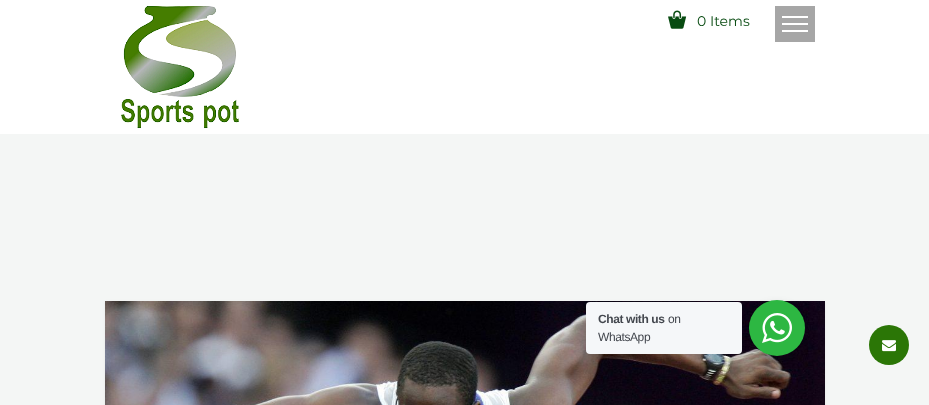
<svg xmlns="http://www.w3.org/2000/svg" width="929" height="405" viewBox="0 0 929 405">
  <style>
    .t1 { font: 14px Montserrat; fill: #084b11; }
    .t2 { font: bold 12px Liberation Sans; letter-spacing: -0.4px; fill: #43474e; }
    .t3 { font: 12px Liberation Sans; letter-spacing: -0.4px; fill: #43474e; }
  </style>
  <rect width="100%" height="100%" fill="#f4f6f5"/>
  <rect x="0" y="0" width="929" height="134" fill="#fff"/>
  <image x="121" y="6" width="118" height="123" href="images/1.png"/>
  <image x="668" y="10" width="19" height="19" href="images/2.png"/>
  <text x="697" y="26" class="t1">0 Items</text>
  <rect x="775" y="6" width="40" height="36" fill="#a6a6a6"/>
  <rect x="782" y="16" width="26" height="2" fill="#fff"/>
  <rect x="782" y="23" width="26" height="2" fill="#fff"/>
  <rect x="782" y="30" width="26" height="2" fill="#fff"/>
  <rect x="105" y="302" width="720" height="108" fill="#0000000f" filter="blur(1.5px)"/>
  <image x="105" y="301" width="720" height="104" href="images/3.png"/>
  <rect x="747" y="304" width="60" height="60" rx="30" fill="#00000024" filter="blur(4px)"/>
  <rect x="586" y="302" width="156" height="52" rx="4" fill="#f5f7f9"/>
  <text x="598" y="323" class="t2">Chat with us</text>
  <text x="668" y="323" class="t3">on</text>
  <text x="598" y="341" class="t3">WhatsApp</text>
  <circle cx="777" cy="328" r="28" fill="#2db742"/>
  <image x="762" y="313" width="30" height="30" href="images/4.png"/>
  <circle cx="889" cy="345" r="20" fill="#2b7606"/>
  <image x="882" y="340" width="14" height="12" href="images/5.png"/>
</svg>
